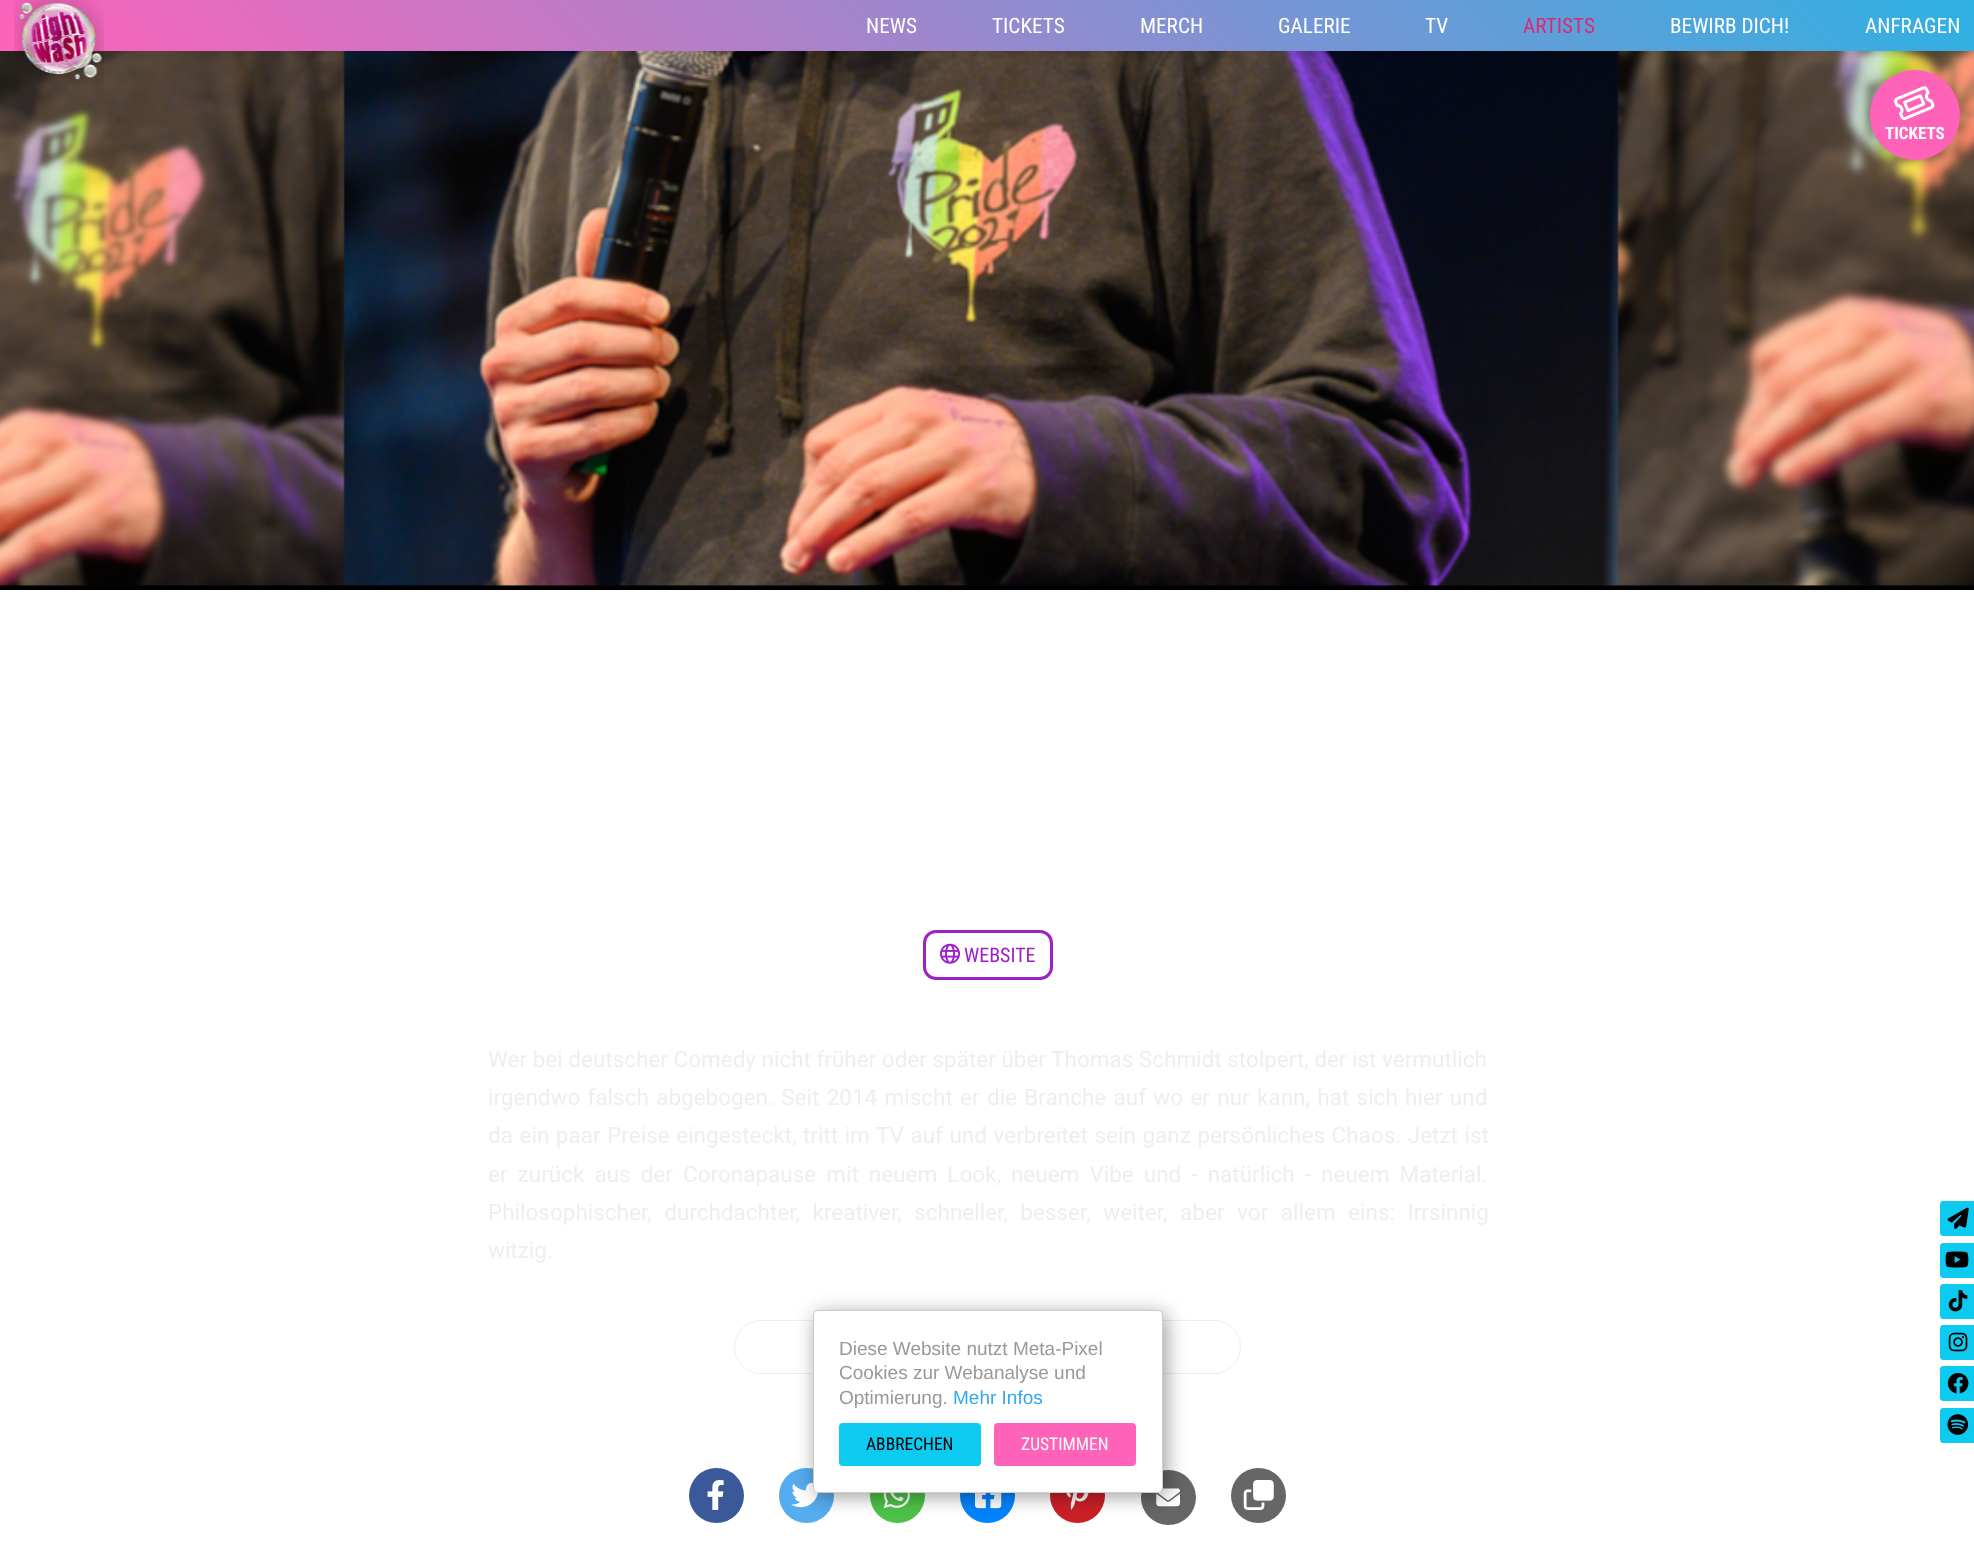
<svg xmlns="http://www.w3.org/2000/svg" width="1974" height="1567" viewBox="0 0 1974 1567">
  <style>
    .t1 { font: 21.25px Roboto Condensed; fill: #fff; }
    .t2 { font: 21.25px Roboto Condensed; fill: #d92b72; }
    .t3 { font: bold 17px Roboto Condensed; fill: #fff; }
    .t4 { font: 20px Roboto Condensed; fill: #9e20c7; }
    .t5 { font: 22.5px Roboto; fill: #eee; }
    .t6 { font: 19px Liberation Sans; fill: #999; }
    .t7 { font: 19px Liberation Sans; fill: #31a8f0; }
    .t8 { font: 17.5px Roboto Condensed; fill: #000; }
    .t9 { font: 17.5px Roboto Condensed; fill: #fff; }
  </style>
  <defs>
    <linearGradient id="g1" gradientUnits="userSpaceOnUse" x1="481" y1="532" x2="1494" y2="-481"><stop offset="0" stop-color="#ff62b9"/><stop offset="1" stop-color="#2eb1e3"/></linearGradient>
    <clipPath id="clip1"><rect x="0" y="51" width="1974" height="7"/></clipPath>
  </defs>
  <rect width="100%" height="100%" fill="#fff"/>
  <rect x="0" y="0" width="1974" height="51" fill="url(#g1)"/>
  <rect x="0" y="585" width="1974" height="5" fill="#000"/>
  <image x="0" y="51" width="1974" height="535" href="images/9.png"/>
  <g clip-path="url(#clip1)">
    <rect x="0" y="0" width="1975" height="51" fill="#00000026" filter="blur(6px)"/>
  </g>
  <image x="14" y="0" width="90" height="84" href="images/1.png"/>
  <text x="866" y="33" class="t1">NEWS</text>
  <text x="992" y="33" class="t1">TICKETS</text>
  <text x="1140" y="33" class="t1">MERCH</text>
  <text x="1278" y="33" class="t1">GALERIE</text>
  <text x="1425" y="33" class="t1">TV</text>
  <text x="1523" y="33" class="t2">ARTISTS</text>
  <text x="1670" y="33" class="t1">BEWIRB DICH!</text>
  <text x="1865" y="33" class="t1">ANFRAGEN</text>
  <path d="M1943 1201H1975V1236H1943C1941.5 1236 1940 1234.5 1940 1233V1204C1940 1202.5 1941.5 1201 1943 1201Z" fill="#0dcaf0"/>
  <image x="1947" y="1207" width="22" height="22" href="images/2.png"/>
  <path d="M1943 1243H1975V1278H1943C1941.5 1278 1940 1276.5 1940 1275V1246C1940 1244.5 1941.5 1243 1943 1243Z" fill="#0dcaf0"/>
  <image x="1945" y="1251" width="24" height="17" href="images/3.png"/>
  <path d="M1943 1284H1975V1319H1943C1941.5 1319 1940 1317.5 1940 1316V1287C1940 1285.5 1941.5 1284 1943 1284Z" fill="#0dcaf0"/>
  <image x="1948" y="1290" width="20" height="22" href="images/4.png"/>
  <path d="M1943 1325H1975V1360H1943C1941.5 1360 1940 1358.5 1940 1357V1328C1940 1326.5 1941.5 1325 1943 1325Z" fill="#0dcaf0"/>
  <image x="1948" y="1332" width="20" height="20" href="images/5.png"/>
  <path d="M1943 1366H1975V1401H1943C1941.5 1401 1940 1399.5 1940 1398V1369C1940 1367.5 1941.5 1366 1943 1366Z" fill="#0dcaf0"/>
  <image x="1947" y="1373" width="22" height="21" href="images/6.png"/>
  <path d="M1943 1408H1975V1443H1943C1941.5 1443 1940 1441.5 1940 1440V1411C1940 1409.5 1941.5 1408 1943 1408Z" fill="#0dcaf0"/>
  <image x="1947" y="1414" width="22" height="21" href="images/7.png"/>
  <rect x="1870" y="70" width="90" height="90" rx="45" fill="#00000033" filter="blur(6px)"/>
  <circle cx="1915" cy="115" r="45" fill="#ff62b9"/>
  <image x="1894" y="86" width="41" height="34" href="images/8.png"/>
  <text x="1885" y="139" class="t3">TICKETS</text>
  <rect x="924.5" y="931.5" width="127" height="47" rx="11.5" fill="none" stroke="#9e20c7" stroke-width="3"/>
  <image x="940" y="943" width="20" height="21" href="images/10.png"/>
  <text x="964" y="962" class="t4">WEBSITE</text>
  <text x="488" y="1067" class="t5">Wer bei deutscher Comedy nicht früher oder später über Thomas Schmidt stolpert, der ist vermutlich</text>
  <text x="488" y="1105" word-spacing="1.75" class="t5">irgendwo falsch abgebogen. Seit 2014 mischt er die Branche auf wo er nur kann, hat sich hier und</text>
  <text x="488" y="1143" word-spacing="1" class="t5">da ein paar Preise eingesteckt, tritt im TV auf und verbreitet sein ganz persönliches Chaos. Jetzt ist</text>
  <text x="488" y="1182" word-spacing="4.5" class="t5">er zurück aus der Coronapause mit neuem Look, neuem Vibe und - natürlich - neuem Material.</text>
  <text x="488" y="1220" word-spacing="7" class="t5">Philosophischer, durchdachter, kreativer, schneller, besser, weiter, aber vor allem eins: Irrsinnig</text>
  <text x="488" y="1258" class="t5">witzig.</text>
  <rect x="734.5" y="1320.5" width="150" height="53" rx="26.5" fill="none" stroke="#eee"/>
  <rect x="1078.5" y="1320.5" width="162" height="53" rx="26.5" fill="none" stroke="#eee"/>
  <circle cx="716.5" cy="1495.5" r="27.5" fill="#3b5998"/>
  <image x="707" y="1480" width="17" height="30" href="images/11.png"/>
  <circle cx="806.5" cy="1495.5" r="27.5" fill="#55acee"/>
  <image x="791" y="1482" width="27" height="26" href="images/12.png"/>
  <circle cx="897.5" cy="1495.5" r="27.5" fill="#4dc247"/>
  <image x="883" y="1493" width="27" height="15" href="images/13.png"/>
  <circle cx="987.5" cy="1495.5" r="27.5" fill="#0084ff"/>
  <image x="975" y="1493" width="27" height="16" href="images/14.png"/>
  <circle cx="1077.5" cy="1495.5" r="27.5" fill="#cb2027"/>
  <image x="1066" y="1493" width="23" height="17" href="images/15.png"/>
  <circle cx="1168.5" cy="1497.5" r="27.5" fill="#666"/>
  <image x="1156" y="1488" width="24" height="19" href="images/16.png"/>
  <circle cx="1258.5" cy="1495.5" r="27.5" fill="#666"/>
  <image x="1243" y="1480" width="31" height="30" href="images/17.png"/>
  <rect x="816" y="1314" width="350" height="182" rx="5" fill="#00000066" filter="blur(10px)"/>
  <rect x="813.5" y="1310.5" width="349" height="182" rx="4.5" fill="#fff" stroke="#ccc"/>
  <text x="839" y="1355" class="t6">Diese Website nutzt Meta-Pixel</text>
  <text x="839" y="1379" class="t6">Cookies zur Webanalyse und</text>
  <text x="839" y="1404" class="t6">Optimierung.</text>
  <text x="953" y="1404" class="t7">Mehr Infos</text>
  <rect x="839" y="1423" width="142" height="43" rx="4" fill="#0dcaf0"/>
  <text x="866" y="1450" class="t8">ABBRECHEN</text>
  <rect x="994" y="1423" width="142" height="43" rx="4" fill="#ff62b9"/>
  <text x="1021" y="1450" class="t9">ZUSTIMMEN</text>
</svg>
